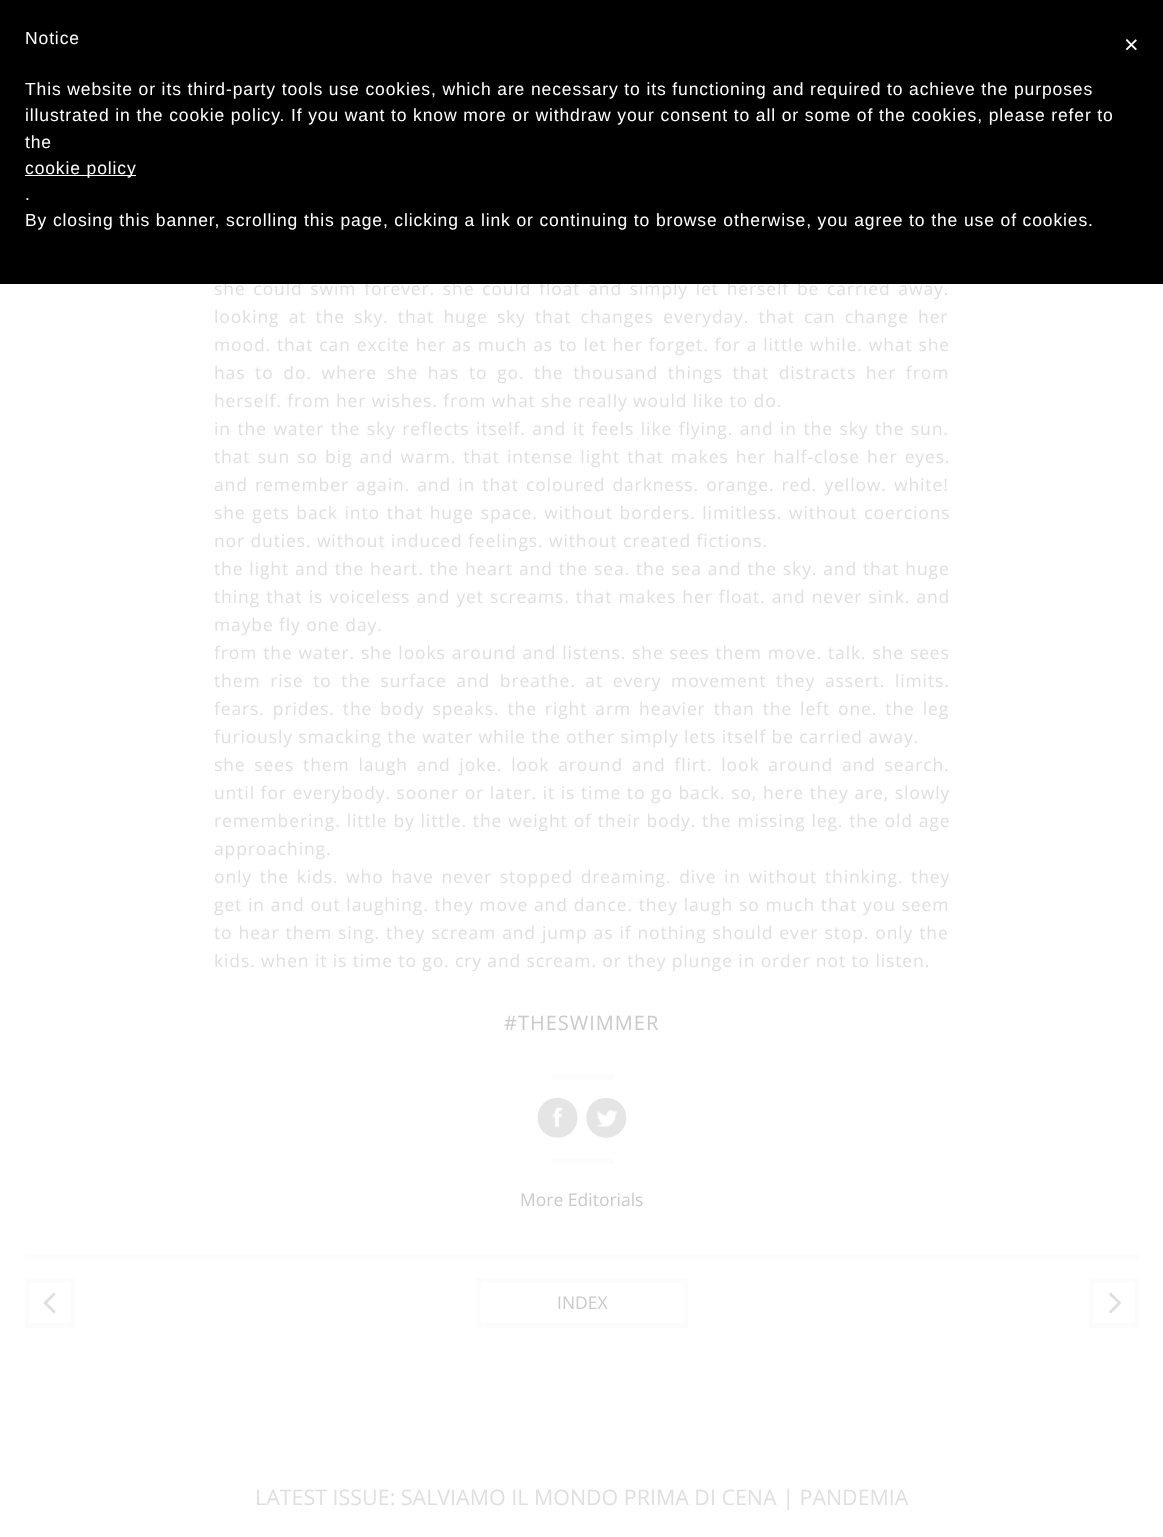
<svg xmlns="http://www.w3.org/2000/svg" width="1163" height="1537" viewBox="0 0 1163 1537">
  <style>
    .t1 { font: 17.5px Open Sans; letter-spacing: 0.88px; fill: #dfdfdf; }
    .t2 { font: 17.5px Liberation Sans; letter-spacing: 0.88px; fill: #fff; }
    .t3 { font: 25px Liberation Sans; fill: #fff; }
    .t4 { font: 20px Open Sans; letter-spacing: 1px; fill: #cacaca; }
    .t5 { font: 17.5px Open Sans; fill: #cacaca; }
    .t6 { font: 21.45px Open Sans; fill: #dfdfdf; }
  </style>
  <rect width="100%" height="100%" fill="#fff"/>
  <text x="214" y="295" word-spacing="2.4" class="t1">she could swim forever. she could float and simply let herself be carried away.</text>
  <rect x="0" y="0" width="1163" height="284" fill="#000"/>
  <text x="25" y="44" class="t2">Notice</text>
  <text x="25" y="95" class="t2">This website or its third-party tools use cookies, which are necessary to its functioning and required to achieve the purposes</text>
  <text x="25" y="121" class="t2">illustrated in the cookie policy. If you want to know more or withdraw your consent to all or some of the cookies, please refer to</text>
  <text x="25" y="148" class="t2">the</text>
  <rect x="25" y="175" width="111" height="1" fill="#fff"/>
  <text x="25" y="174" class="t2">cookie policy</text>
  <text x="25" y="200" class="t2">.</text>
  <text x="25" y="226" class="t2">By closing this banner, scrolling this page, clicking a link or continuing to browse otherwise, you agree to the use of cookies.</text>
  <text x="1124" y="53" class="t3">×</text>
  <text x="214" y="323" word-spacing="3.75" class="t1">looking at the sky. that huge sky that changes everyday. that can change her</text>
  <text x="214" y="351" word-spacing="0.5" class="t1">mood. that can excite her as much as to let her forget. for a little while. what she</text>
  <text x="214" y="379" word-spacing="4.25" class="t1">has to do. where she has to go. the thousand things that distracts her from</text>
  <text x="214" y="407" class="t1">herself. from her wishes. from what she really would like to do.</text>
  <text x="214" y="435" word-spacing="1.1" class="t1">in the water the sky reflects itself. and it feels like flying. and in the sky the sun.</text>
  <text x="214" y="463" word-spacing="1.75" class="t1">that sun so big and warm. that intense light that makes her half-close her eyes.</text>
  <text x="214" y="491" word-spacing="1.75" class="t1">and remember again. and in that coloured darkness. orange. red. yellow. white!</text>
  <text x="214" y="519" word-spacing="1.25" class="t1">she gets back into that huge space. without borders. limitless. without coercions</text>
  <text x="214" y="547" class="t1">nor duties. without induced feelings. without created fictions.</text>
  <text x="214" y="575" word-spacing="0.5" class="t1">the light and the heart. the heart and the sea. the sea and the sky. and that huge</text>
  <text x="214" y="603" word-spacing="0.75" class="t1">thing that is voiceless and yet screams. that makes her float. and never sink. and</text>
  <text x="214" y="631" class="t1">maybe fly one day.</text>
  <text x="214" y="659" word-spacing="0.5" class="t1">from the water. she looks around and listens. she sees them move. talk. she sees</text>
  <text x="214" y="687" word-spacing="4.25" class="t1">them rise to the surface and breathe. at every movement they assert. limits.</text>
  <text x="214" y="715" word-spacing="2.6" class="t1">fears. prides. the body speaks. the right arm heavier than the left one. the leg</text>
  <text x="214" y="743" class="t1">furiously smacking the water while the other simply lets itself be carried away.</text>
  <text x="214" y="771" word-spacing="3.4" class="t1">she sees them laugh and joke. look around and flirt. look around and search.</text>
  <text x="214" y="799" word-spacing="0.25" class="t1">until for everybody. sooner or later. it is time to go back. so, here they are, slowly</text>
  <text x="214" y="827" word-spacing="0.5" class="t1">remembering. little by little. the weight of their body. the missing leg. the old age</text>
  <text x="214" y="855" class="t1">approaching.</text>
  <text x="214" y="883" word-spacing="2.25" class="t1">only the kids. who have never stopped dreaming. dive in without thinking. they</text>
  <text x="214" y="911" word-spacing="0.4" class="t1">get in and out laughing. they move and dance. they laugh so much that you seem</text>
  <text x="214" y="939" word-spacing="0.6" class="t1">to hear them sing. they scream and jump as if nothing should ever stop. only the</text>
  <text x="214" y="967" class="t1">kids. when it is time to go. cry and scream. or they plunge in order not to listen.</text>
  <text x="504" y="1030" class="t4">#THESWIMMER</text>
  <rect x="551" y="1074" width="63" height="6" fill="#fcfcfc"/>
  <image x="537" y="1097" width="41" height="41" href="images/1.png"/>
  <image x="586" y="1097" width="41" height="41" href="images/2.png"/>
  <rect x="551" y="1158" width="63" height="6" fill="#fcfcfc"/>
  <text x="520" y="1206" class="t5">More Editorials</text>
  <rect x="25" y="1254" width="1114" height="6" fill="#fcfcfc"/>
  <rect x="27.5" y="1280.5" width="45" height="45" fill="none" stroke="#fcfcfc" stroke-width="5"/>
  <image x="43" y="1292" width="13" height="22" href="images/3.png"/>
  <rect x="478.5" y="1280.5" width="208" height="45" fill="none" stroke="#fcfcfc" stroke-width="5"/>
  <text x="557" y="1309" class="t5">INDEX</text>
  <rect x="1091.5" y="1280.5" width="45" height="45" fill="none" stroke="#fcfcfc" stroke-width="5"/>
  <image x="1109" y="1292" width="12" height="22" href="images/4.png"/>
  <text x="255" y="1505" class="t6">LATEST ISSUE: SALVIAMO IL MONDO PRIMA DI CENA | PANDEMIA</text>
</svg>
